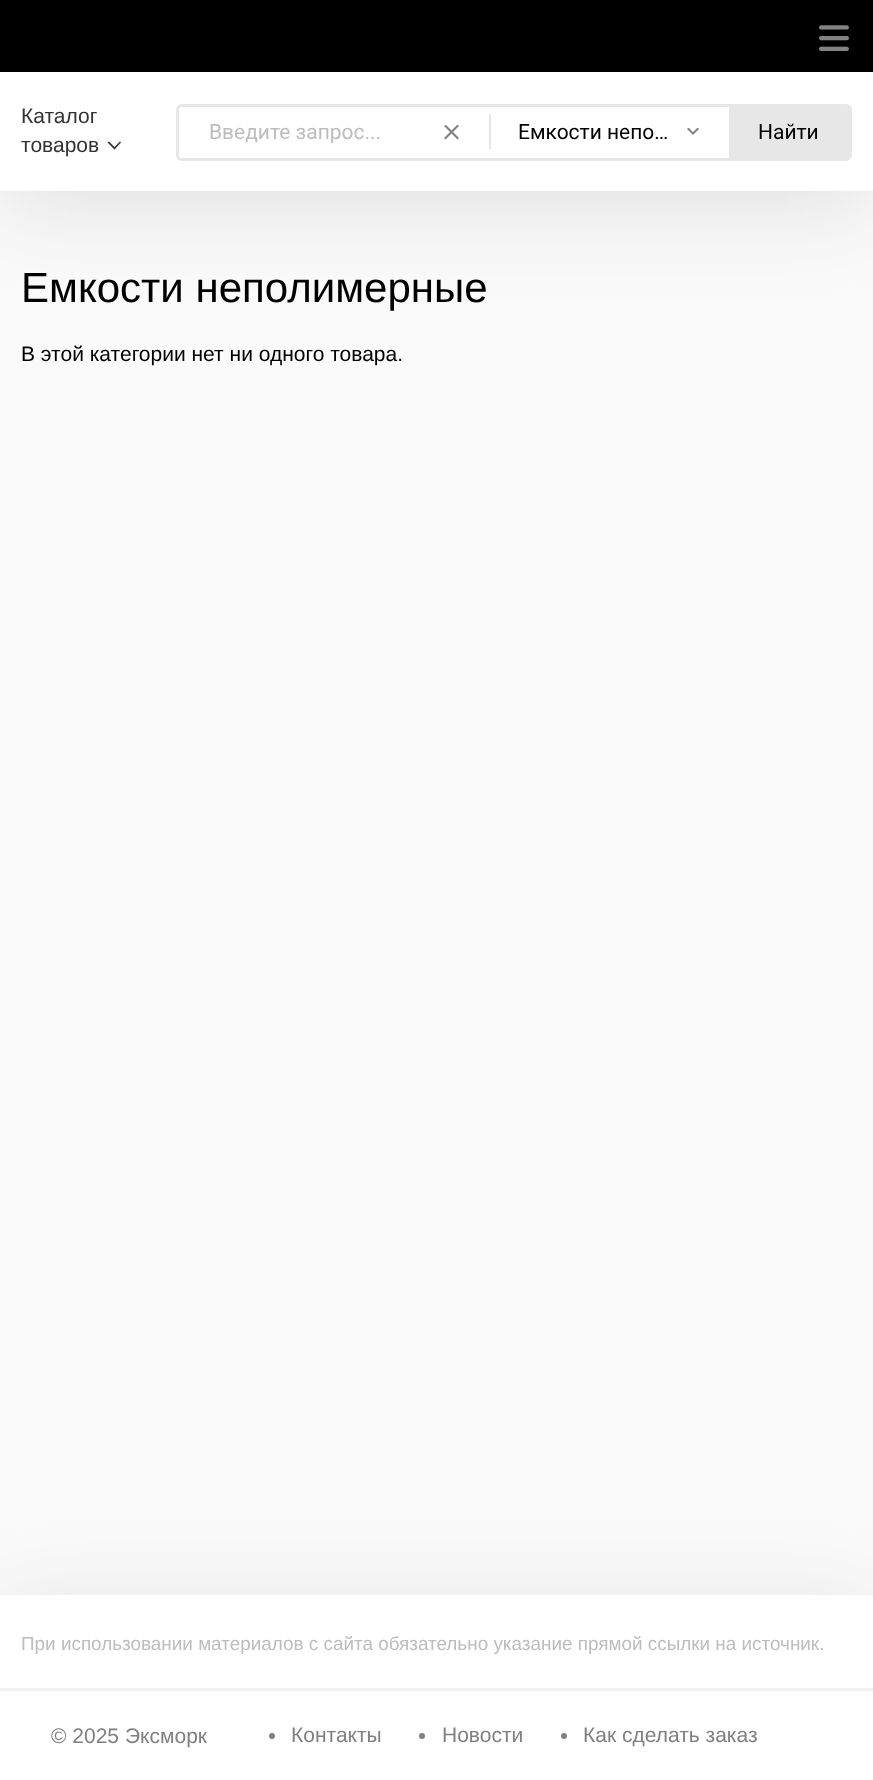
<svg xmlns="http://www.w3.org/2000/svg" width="873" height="1780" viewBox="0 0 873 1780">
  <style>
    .t1 { font: 21px Liberation Sans; fill: #333; }
    .t2 { font: 21px Roboto; fill: #bdbdbd; }
    .t3 { font: 21px Roboto; fill: #000; }
    .t4 { font: 42px Liberation Sans; fill: #000; }
    .t5 { font: 21px Liberation Sans; fill: #000; }
    .t6 { font: 18.9px Liberation Sans; fill: #bdbdbd; }
    .t7 { font: 21px Liberation Sans; fill: #808080; }
  </style>
  <rect width="100%" height="100%" fill="#fafafa"/>
  <rect x="0" y="15" width="873" height="191" fill="#0000001a" filter="blur(45px)"/>
  <rect x="0" y="72" width="873" height="119" fill="#fff"/>
  <rect x="0" y="0" width="873" height="72" fill="#000"/>
  <image x="819" y="25" width="30" height="26" href="images/1.png"/>
  <text x="21" y="123" class="t1">Каталог</text>
  <text x="21" y="152" class="t1">товаров</text>
  <path d="M120 141.5L121 142.5L114.5 149.5L113.5 148Z" fill="#333"/>
  <path d="M109 141.5L115.5 148L114.5 149.5L107.5 142.5Z" fill="#333"/>
  <rect x="177.5" y="105.5" width="673" height="54" rx="4.5" fill="none" stroke="#e7e7e7" stroke-width="3"/>
  <text x="209" y="139" class="t2">Введите запрос...</text>
  <image x="444" y="125" width="15" height="15" href="images/2.png"/>
  <rect x="489" y="114" width="2" height="35" fill="#e7e7e7"/>
  <text x="518" y="139" class="t3">Емкости непо…</text>
  <image x="687" y="128" width="12" height="7" href="images/3.png"/>
  <rect x="729" y="107" width="120" height="51" fill="#e7e7e7"/>
  <text x="758" y="139" class="t3">Найти</text>
  <text x="21" y="302" class="t4">Емкости неполимерные</text>
  <text x="21" y="361" class="t5">В этой категории нет ни одного товара.</text>
  <rect x="0" y="1610" width="873" height="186" fill="#0000001a" filter="blur(45px)"/>
  <rect x="0" y="1595" width="873" height="185" fill="#fff"/>
  <text x="21" y="1650" class="t6">При использовании материалов с сайта обязательно указание прямой ссылки на источник.</text>
  <rect x="0" y="1688" width="873" height="3" fill="#f2f2f2"/>
  <text x="51" y="1743" class="t7">© 2025</text>
  <text x="125" y="1743" class="t7">Эксморк</text>
  <circle cx="272" cy="1736" r="3" fill="#808080"/>
  <text x="291" y="1742" class="t7">Контакты</text>
  <circle cx="422" cy="1736" r="3" fill="#808080"/>
  <text x="442" y="1742" class="t7">Новости</text>
  <circle cx="564" cy="1736" r="3" fill="#808080"/>
  <text x="583" y="1742" class="t7">Как сделать заказ</text>
</svg>
